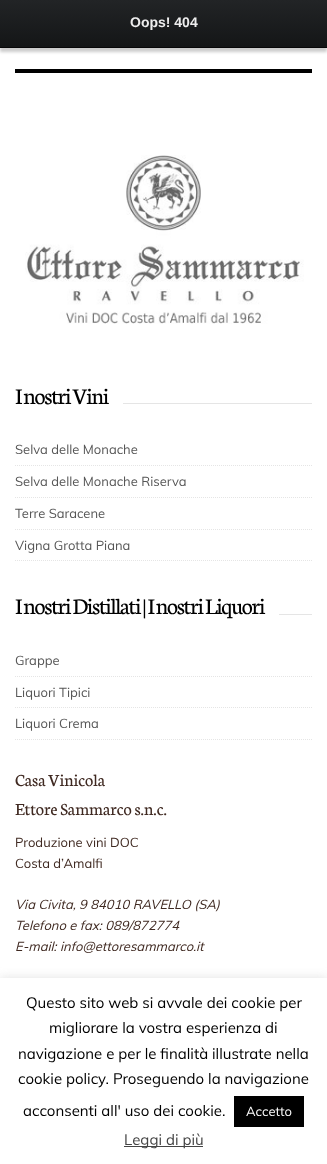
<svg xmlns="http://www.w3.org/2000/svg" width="327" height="1164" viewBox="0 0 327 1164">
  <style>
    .t1 { font: bold 14px Liberation Sans; fill: #eee; }
    .t2 { font: 24px Neuton; letter-spacing: -1.2px; fill: #000; }
    .t3 { font: 13px Muli; fill: #565656; }
    .t4 { font: 18px Neuton; fill: #3f2921; }
    .t5 { font: 13px Muli; fill: #3f2921; }
    .t6 { font: italic 13px Muli; fill: #3f2921; }
    .t7 { font: 15px Muli; fill: #000; }
    .t8 { font: 13px Muli; fill: #fff; }
    .t9 { font: 15px Muli; fill: #444; }
  </style>
  <defs>
    <linearGradient id="g1" gradientUnits="userSpaceOnUse" x1="0" y1="47" x2="0" y2="0"><stop offset="0.01" stop-color="#141617"/><stop offset="1" stop-color="#222426"/></linearGradient>
  </defs>
  <rect width="100%" height="100%" fill="#fff"/>
  <rect x="0" y="4" width="327" height="48" fill="#00000033" filter="blur(1.5px)"/>
  <rect x="0" y="0" width="327" height="47" fill="url(#g1)"/>
  <rect x="0" y="47" width="327" height="1" fill="#070708"/>
  <text x="130" y="27" class="t1">Oops! 404</text>
  <rect x="15" y="69" width="297" height="4" fill="#000"/>
  <image x="25" y="155" width="279" height="169" href="images/1.png"/>
  <text x="15" y="404" class="t2">I nostri Vini</text>
  <rect x="123" y="403" width="189" height="1" fill="#e5e5e5"/>
  <path d="M15 465.5H312" fill="none" stroke="#e5e5e5" stroke-dasharray="1 1"/>
  <text x="15" y="454" class="t3">Selva delle Monache</text>
  <path d="M15 497.5H312" fill="none" stroke="#e5e5e5" stroke-dasharray="1 1"/>
  <text x="15" y="486" class="t3">Selva delle Monache Riserva</text>
  <path d="M15 529.5H312" fill="none" stroke="#e5e5e5" stroke-dasharray="1 1"/>
  <text x="15" y="518" class="t3">Terre Saracene</text>
  <path d="M15 560.5H312" fill="none" stroke="#e5e5e5" stroke-dasharray="1 1"/>
  <text x="15" y="550" class="t3">Vigna Grotta Piana</text>
  <text x="15" y="614" class="t2">I nostri Distillati | I nostri Liquori</text>
  <rect x="279" y="614" width="33" height="1" fill="#e5e5e5"/>
  <path d="M15 676.5H312" fill="none" stroke="#e5e5e5" stroke-dasharray="1 1"/>
  <text x="15" y="665" class="t3">Grappe</text>
  <path d="M15 707.5H312" fill="none" stroke="#e5e5e5" stroke-dasharray="1 1"/>
  <text x="15" y="697" class="t3">Liquori Tipici</text>
  <path d="M15 739.5H312" fill="none" stroke="#e5e5e5" stroke-dasharray="1 1"/>
  <text x="15" y="728" class="t3">Liquori Crema</text>
  <text x="15" y="786" class="t4">Casa Vinicola</text>
  <text x="15" y="815" class="t4">Ettore Sammarco s.n.c.</text>
  <text x="15" y="847" class="t5">Produzione vini DOC</text>
  <text x="15" y="868" class="t5">Costa d’Amalfi</text>
  <text x="15" y="909" class="t6">Via Civita, 9 84010 RAVELLO (SA)</text>
  <text x="15" y="930" class="t6">Telefono e fax: 089/872774</text>
  <text x="15" y="951" class="t6">E-mail: info@ettoresammarco.it</text>
  <rect x="0" y="977" width="327" height="186" fill="#acabab4d" filter="blur(5px)"/>
  <rect x="0" y="978" width="327" height="186" fill="#fff"/>
  <text x="26" y="1008" class="t7">Questo sito web si avvale dei cookie per</text>
  <text x="49" y="1033" class="t7">migliorare la vostra esperienza di</text>
  <text x="18" y="1059" class="t7">navigazione e per le finalità illustrate nella</text>
  <text x="18" y="1084" class="t7">cookie policy. Proseguendo la navigazione</text>
  <text x="23" y="1116" class="t7">acconsenti all' uso dei cookie.</text>
  <rect x="234" y="1096" width="70" height="31" fill="#000"/>
  <text x="246" y="1116" class="t8">Accetto</text>
  <rect x="124" y="1146" width="79" height="1" fill="#444"/>
  <text x="124" y="1145" class="t9">Leggi di più</text>
</svg>
